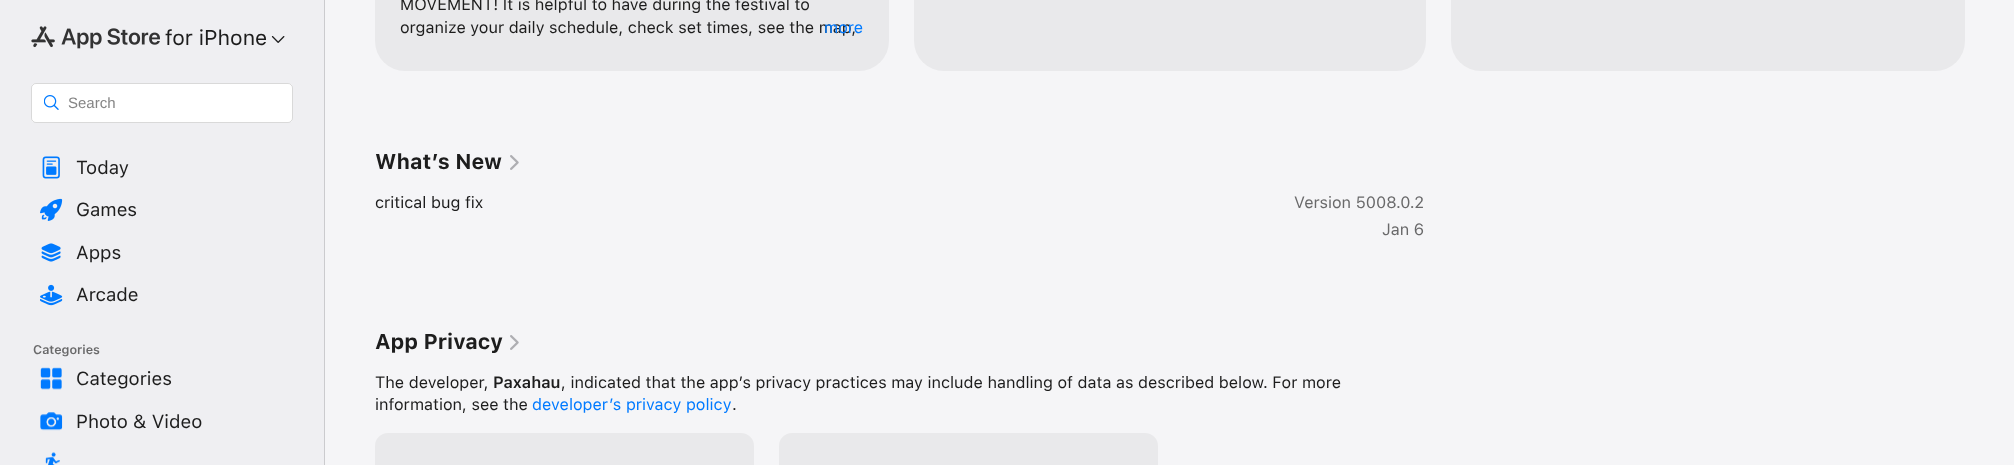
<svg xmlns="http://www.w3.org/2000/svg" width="2014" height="465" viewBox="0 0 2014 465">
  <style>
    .t1 { font: 21.25px SF; fill: #1d1d1d; }
    .t2 { font: 15px Liberation Sans; fill: #858585; }
    .t3 { font: 18.75px SF; fill: #1d1d1d; }
    .t4 { font: 600 12.5px SF; fill: #69696a; }
    .t5 { font: 16.25px SF; fill: #1d1d1d; }
    .t6 { font: 16.25px SF; fill: #007aff; }
    .t7 { font: bold 21.25px SF; fill: #1d1d1d; }
    .t8 { font: 16.25px SF; fill: #69696a; }
    .t9 { font: 600 16.25px SF; fill: #1d1d1d; }
  </style>
  <rect width="100%" height="100%" fill="#f5f5f7"/>
  <rect x="0" y="0" width="324" height="465" fill="#efeff2"/>
  <rect x="324" y="0" width="1" height="465" fill="#cbcbce"/>
  <image x="31" y="26" width="129" height="23" href="images/1.png"/>
  <text x="165" y="45" class="t1">for iPhone</text>
  <image x="271" y="36" width="14" height="7" href="images/2.png"/>
  <rect x="31" y="83" width="262" height="40" rx="5" fill="#fff"/>
  <rect x="31.5" y="83.5" width="261" height="39" rx="4.5" fill="none" stroke="#00000026"/>
  <image x="44" y="95" width="15" height="15" href="images/3.png"/>
  <text x="68" y="108" class="t2">Search</text>
  <image x="42" y="156" width="18" height="23" href="images/4.png"/>
  <text x="76" y="174" class="t3">Today</text>
  <image x="40" y="198" width="23" height="23" href="images/5.png"/>
  <text x="76" y="216" class="t3">Games</text>
  <image x="41" y="243" width="20" height="19" href="images/6.png"/>
  <text x="76" y="259" class="t3">Apps</text>
  <image x="40" y="284" width="23" height="22" href="images/7.png"/>
  <text x="76" y="301" class="t3">Arcade</text>
  <text x="33" y="354" class="t4">Categories</text>
  <image x="40" y="367" width="22" height="23" href="images/8.png"/>
  <text x="76" y="385" class="t3">Categories</text>
  <image x="40" y="412" width="23" height="19" href="images/9.png"/>
  <text x="76" y="428" class="t3">Photo &amp; Video</text>
  <image x="45" y="452" width="15" height="13" href="images/10.png"/>
  <rect x="375" y="-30" width="514" height="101" rx="30" fill="#e9e9eb"/>
  <text x="400" y="10" class="t5">MOVEMENT! It is helpful to have during the festival to</text>
  <text x="400" y="33" class="t5">organize your daily schedule, check set times, see the map,</text>
  <text x="824" y="33" class="t6">more</text>
  <rect x="914" y="-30" width="512" height="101" rx="30" fill="#e9e9eb"/>
  <rect x="1451" y="-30" width="514" height="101" rx="30" fill="#e9e9eb"/>
  <text x="375" y="169" class="t7">What’s New</text>
  <image x="510" y="155" width="9" height="15" href="images/11.png"/>
  <text x="375" y="208" class="t5">critical bug fix</text>
  <text x="1294" y="208" class="t8">Version 5008.0.2</text>
  <text x="1382" y="235" class="t8">Jan 6</text>
  <text x="375" y="349" class="t7">App Privacy</text>
  <image x="510" y="335" width="9" height="15" href="images/11.png"/>
  <text x="375" y="388" class="t5">The developer,</text>
  <text x="493" y="388" class="t9">Paxahau</text>
  <text x="561" y="388" class="t5">, indicated that the app’s privacy practices may include handling of data as described below. For more</text>
  <text x="375" y="410" class="t5">information, see the</text>
  <text x="532" y="410" class="t6">developer’s privacy policy</text>
  <text x="732" y="410" class="t5">.</text>
  <rect x="375" y="433" width="379" height="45" rx="13" fill="#e9e9eb"/>
  <rect x="779" y="433" width="379" height="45" rx="13" fill="#e9e9eb"/>
</svg>
